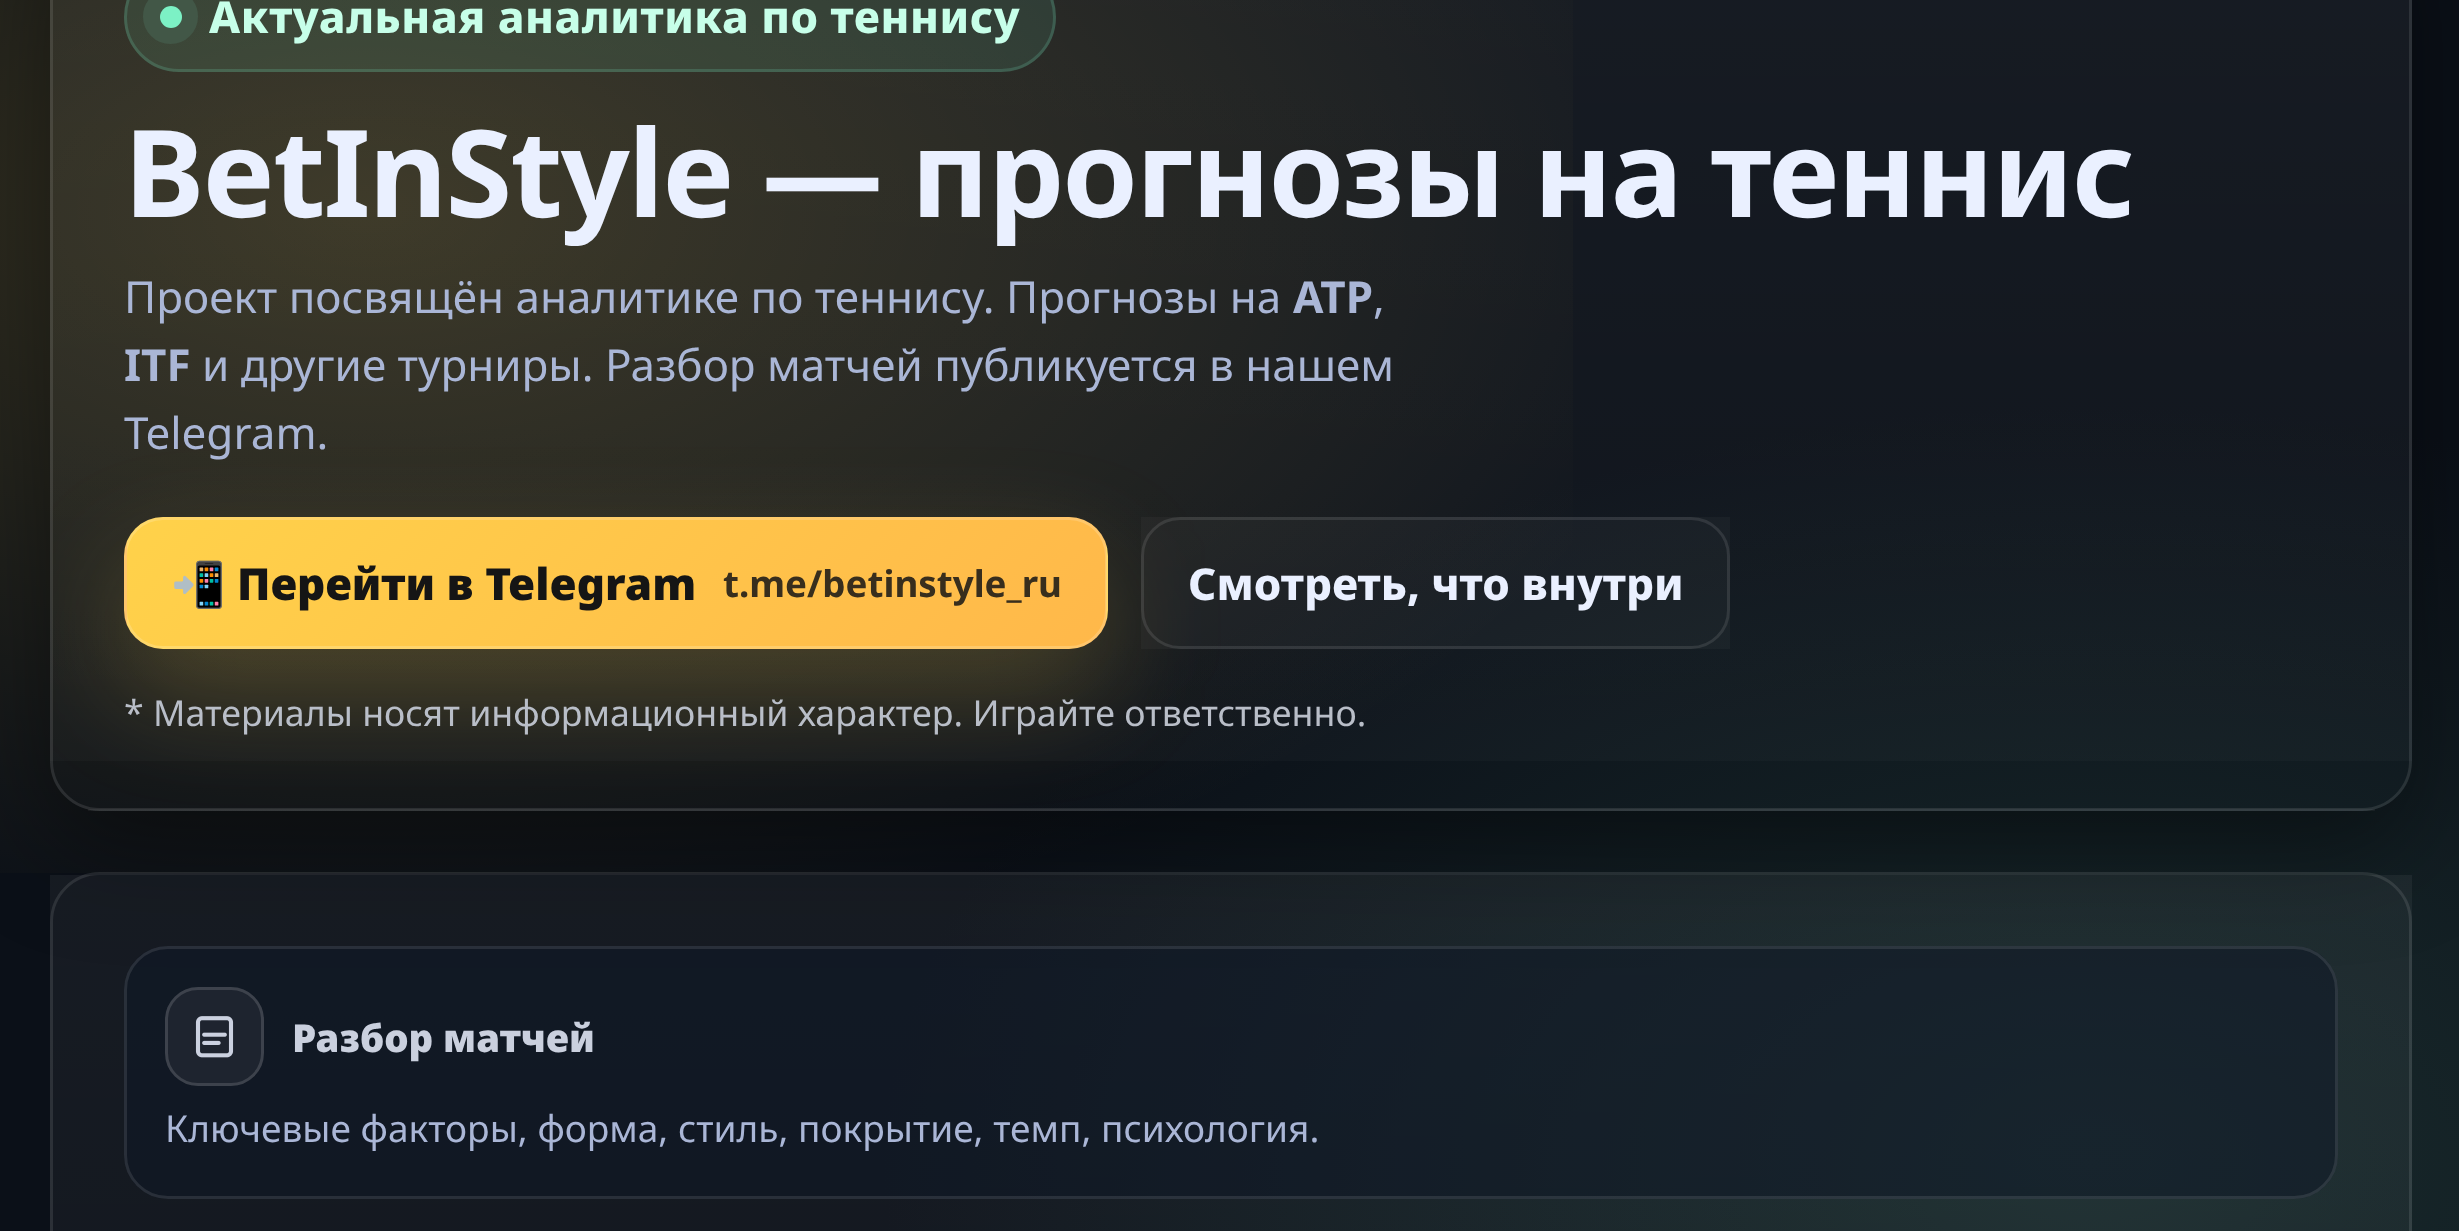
<svg xmlns="http://www.w3.org/2000/svg" width="2459" height="1231" viewBox="0 0 2459 1231">
  <style>
    .t1 { font: 800 44px Noto Sans; letter-spacing: 0.55px; fill: #c7ffe9; }
    .t2 { font: bold 121px Noto Sans; letter-spacing: -1.9px; fill: #eaf0ff; }
    .t3 { font: 44px Noto Sans; fill: #aab6d6; }
    .t4 { font: bold 44px Noto Sans; fill: #aab6d6; }
    .t5 { font: bold 44px Noto Color Emoji; fill: #151515; }
    .t6 { font: 900 44px Noto Sans; fill: #151515; }
    .t7 { font: bold 36.75px Noto Sans; fill: #382e1d; }
    .t8 { font: 800 44px Noto Sans; fill: #eaf0ff; }
    .t9 { font: 35.75px Noto Sans; fill: #b9bec8; }
    .t10 { font: 900 38.5px Noto Sans; fill: #cad0de; }
    .t11 { font: 37.1px Noto Sans; fill: #aab6d6; }
  </style>
  <defs>
    <radialGradient id="g1" gradientUnits="userSpaceOnUse" cx="0" cy="0" r="1" gradientTransform="matrix(2200 0 0 1375 2092 1163)"><stop offset="0" stop-color="#192b2d"/><stop offset="0.55" stop-color="#0b1018"/></radialGradient>
    <radialGradient id="g2" gradientUnits="userSpaceOnUse" cx="0" cy="0" r="1" gradientTransform="matrix(2475 0 0 1375 369 209)"><stop offset="0" stop-color="#ffd24a" stop-opacity="0.18"/><stop offset="0.55" stop-color="#ffd24a" stop-opacity="0"/></radialGradient>
    <clipPath id="clip1"><path d="M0 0H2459V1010H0ZM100-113H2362C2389.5-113 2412-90.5 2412-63V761C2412 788.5 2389.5 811 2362 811H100C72.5 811 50 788.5 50 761V-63C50-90.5 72.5-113 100-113Z" clip-rule="evenodd"/></clipPath>
    <linearGradient id="g3" gradientUnits="userSpaceOnUse" x1="1231" y1="-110" x2="1231" y2="809"><stop offset="0" stop-color="#fff" stop-opacity="0.05"/><stop offset="1" stop-color="#fff" stop-opacity="0.02"/></linearGradient>
    <linearGradient id="g4" gradientUnits="userSpaceOnUse" x1="1231" y1="808" x2="1231" y2="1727"><stop offset="0" stop-color="#fff" stop-opacity="0.05"/><stop offset="1" stop-color="#fff" stop-opacity="0.02"/></linearGradient>
    <clipPath id="clip2"><rect x="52" y="-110" width="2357" height="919" rx="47"/></clipPath>
    <clipPath id="clip3"><rect x="124" y="517" width="984" height="132" rx="39"/></clipPath>
    <linearGradient id="g5" gradientUnits="userSpaceOnUse" x1="340" y1="180" x2="892" y2="733"><stop offset="0" stop-color="#ffd24a"/><stop offset="1" stop-color="#ffb84a"/></linearGradient>
    <linearGradient id="g6" gradientUnits="userSpaceOnUse" x1="-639" y1="307" x2="-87" y2="859"><stop offset="0" stop-color="#ffd24a"/><stop offset="1" stop-color="#ffb84a"/></linearGradient>
    <linearGradient id="g7" gradientUnits="userSpaceOnUse" x1="340" y1="307" x2="892" y2="859"><stop offset="0" stop-color="#ffd24a"/><stop offset="1" stop-color="#ffb84a"/></linearGradient>
    <linearGradient id="g8" gradientUnits="userSpaceOnUse" x1="1319" y1="307" x2="1871" y2="859"><stop offset="0" stop-color="#ffd24a"/><stop offset="1" stop-color="#ffb84a"/></linearGradient>
    <linearGradient id="g9" gradientUnits="userSpaceOnUse" x1="340" y1="433" x2="892" y2="986"><stop offset="0" stop-color="#ffd24a"/><stop offset="1" stop-color="#ffb84a"/></linearGradient>
    <linearGradient id="g10" gradientUnits="userSpaceOnUse" x1="1231" y1="874" x2="1231" y2="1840"><stop offset="0" stop-color="#fff" stop-opacity="0.05"/><stop offset="1" stop-color="#fff" stop-opacity="0.02"/></linearGradient>
  </defs>
  <rect width="100%" height="100%" fill="#fff"/>
  <rect x="0" y="0" width="2459" height="1231" fill="url(#g1)"/>
  <rect x="0" y="0" width="1573" height="873" fill="url(#g2)"/>
  <g clip-path="url(#clip1)">
    <rect x="50" y="-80" width="2362" height="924" rx="50" fill="#00000073" filter="blur(55px)"/>
  </g>
  <rect x="50" y="0" width="2362" height="761" fill="url(#g3)"/>
  <rect x="88" y="809" width="2287" height="2" fill="url(#g4)"/>
  <rect x="51.5" y="-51.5" width="2359" height="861" rx="48.5" fill="none" stroke="#ffffff1a" stroke-width="3"/>
  <rect x="124" y="-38" width="932" height="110" rx="55" fill="#7cf1c51a"/>
  <rect x="125.5" y="-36.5" width="929" height="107" rx="53.5" fill="none" stroke="#7cf1c52e" stroke-width="3"/>
  <circle cx="170.5" cy="16.5" r="19" fill="none" stroke="#425747" stroke-width="17"/>
  <circle cx="171" cy="17" r="11" fill="#7cf1c5"/>
  <text x="209" y="33" class="t1">Актуальная аналитика по теннису</text>
  <text x="124" y="217" class="t2">BetInStyle — прогнозы на теннис</text>
  <text x="124" y="313" class="t3">Проект посвящён аналитике по теннису. Прогнозы на</text>
  <text x="1293" y="313" class="t4">ATP</text>
  <text x="1373" y="313" class="t3">,</text>
  <text x="124" y="381" class="t4">ITF</text>
  <text x="202" y="381" class="t3">и другие турниры. Разбор матчей публикуется в нашем</text>
  <text x="124" y="449" class="t3">Telegram.</text>
  <g clip-path="url(#clip2)">
    <rect x="124" y="561" width="984" height="132" rx="39" fill="#ffd24a33" filter="blur(55px)"/>
  </g>
  <g clip-path="url(#clip3)">
    <rect x="148" y="517" width="936" height="3" fill="url(#g5)"/>
    <rect x="124" y="541" width="3" height="84" fill="url(#g6)"/>
    <rect x="127" y="520" width="979" height="126" fill="url(#g7)"/>
    <rect x="1106" y="544" width="2" height="78" fill="url(#g8)"/>
    <rect x="148" y="646" width="936" height="3" fill="url(#g9)"/>
  </g>
  <rect x="125.5" y="518.5" width="981" height="129" rx="37.5" fill="none" stroke="#ffffff2e" stroke-width="3"/>
  <text x="171" y="600" class="t5">📲</text>
  <text x="237" y="600" class="t6">Перейти в Telegram</text>
  <text x="723" y="597" class="t7">t.me/betinstyle_ru</text>
  <rect x="1141" y="517" width="589" height="132" fill="#ffffff08"/>
  <rect x="1142.5" y="518.5" width="586" height="129" rx="37.5" fill="none" stroke="#ffffff1a" stroke-width="3"/>
  <text x="1188" y="600" class="t8">Смотреть, что внутри</text>
  <text x="124" y="726" class="t9">* Материалы носят информационный характер. Играйте ответственно.</text>
  <rect x="50" y="875" width="2362" height="356" fill="url(#g10)"/>
  <rect x="51.5" y="873.5" width="2359" height="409" rx="48.5" fill="none" stroke="#ffffff1a" stroke-width="3"/>
  <rect x="124" y="946" width="2214" height="253" rx="44" fill="#0f17268c"/>
  <rect x="125.5" y="947.5" width="2211" height="250" rx="42.5" fill="none" stroke="#ffffff1a" stroke-width="3"/>
  <rect x="165" y="987" width="99" height="99" rx="33" fill="#1e242f"/>
  <rect x="166.5" y="988.5" width="96" height="96" rx="31.5" fill="none" stroke="#ffffff24" stroke-width="3"/>
  <image x="195" y="1016" width="39" height="42" href="images/1.png"/>
  <text x="292" y="1052" class="t10">Разбор матчей</text>
  <text x="165" y="1142" class="t11">Ключевые факторы, форма, стиль, покрытие, темп, психология.</text>
</svg>
